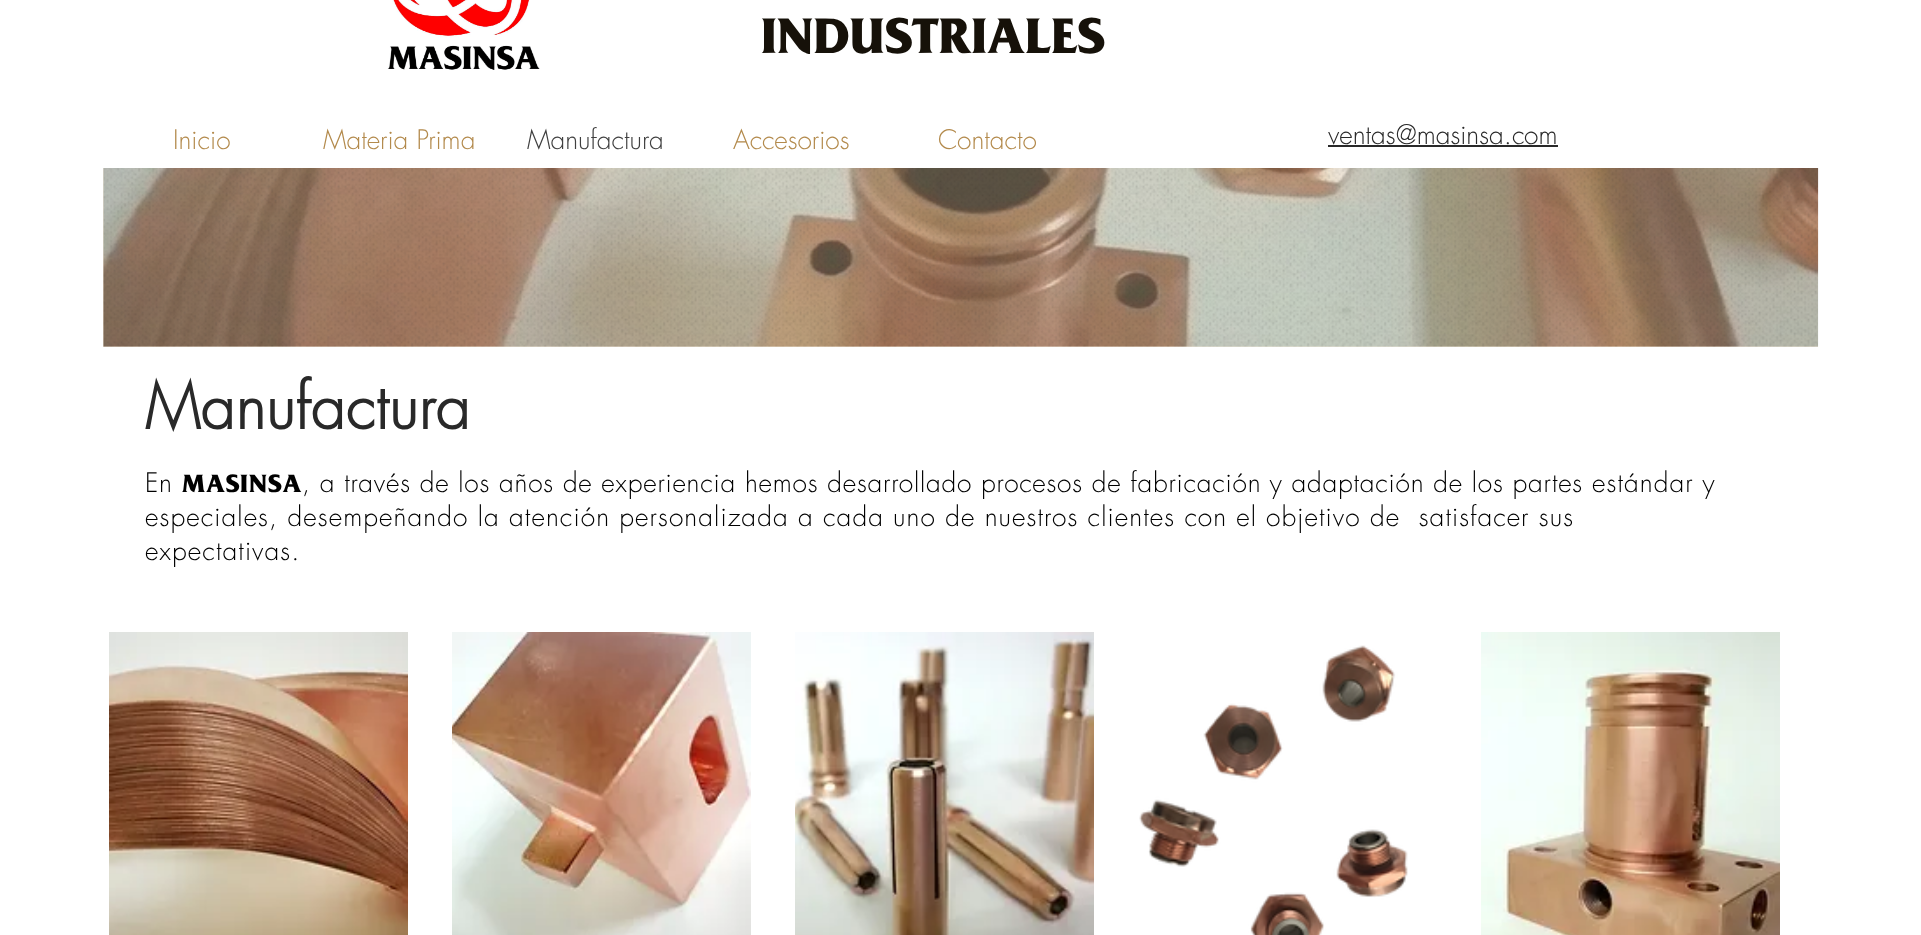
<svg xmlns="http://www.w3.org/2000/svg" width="1921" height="935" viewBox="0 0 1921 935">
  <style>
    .t1 { font: bold 52.5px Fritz; fill: #161109; }
    .t2 { font: 300 26.25px futura; fill: #b38a4c; }
    .t3 { font: 300 26.25px futura; fill: #404040; }
    .t4 { font: 300 26.25px futura; fill: #292929; }
    .t5 { font: bold 61.25px futura; letter-spacing: 0.6px; fill: #292929; }
    .t6 { font: 300 26.25px futura; letter-spacing: 0.79px; fill: #000; }
    .t7 { font: bold 26.25px Fritz; letter-spacing: 0.79px; fill: #000; }
    .t8 { font: 300 26.25px futura; letter-spacing: 1.09px; fill: #000; }
  </style>
  <rect width="100%" height="100%" fill="#fff"/>
  <rect x="103" y="168" width="1715" height="179" fill="#eee5d7"/>
  <image x="387" y="0" width="153" height="70" href="images/1.png"/>
  <text x="761" y="53" class="t1">INDUSTRIALES</text>
  <text x="173" y="149" class="t2">Inicio</text>
  <text x="323" y="149" class="t2">Materia Prima</text>
  <text x="527" y="149" class="t3">Manufactura</text>
  <text x="733" y="149" class="t2">Accesorios</text>
  <text x="938" y="149" class="t2">Contacto</text>
  <text x="1328" y="144" class="t4">ventas@masinsa.com</text>
  <rect x="1328" y="145" width="230" height="2" fill="#292929"/>
  <image x="103" y="168" width="1716" height="179" href="images/2.png"/>
  <image x="103" y="168" width="1715" height="179" href="images/3.png"/>
  <text x="145" y="429" class="t5">Manufactura</text>
  <text x="145" y="492" class="t6">En</text>
  <text x="182" y="492" class="t7">MASINSA</text>
  <text x="302" y="492" class="t6">, a través de los años de experiencia hemos desarrollado procesos de fabricación y adaptación de los partes</text>
  <text x="1592" y="492" class="t8">estándar y</text>
  <text x="145" y="526" class="t8" xml:space="preserve">especiales, desempeñando la atención personalizada a cada uno de nuestros clientes con el objetivo de  satisfacer sus</text>
  <text x="145" y="560" class="t8">expectativas.</text>
  <image x="109" y="632" width="299" height="303" href="images/4.png"/>
  <image x="452" y="632" width="299" height="303" href="images/5.png"/>
  <image x="795" y="632" width="299" height="303" href="images/6.png"/>
  <image x="1139" y="645" width="269" height="290" href="images/7.png"/>
  <image x="1481" y="632" width="299" height="303" href="images/8.png"/>
</svg>
